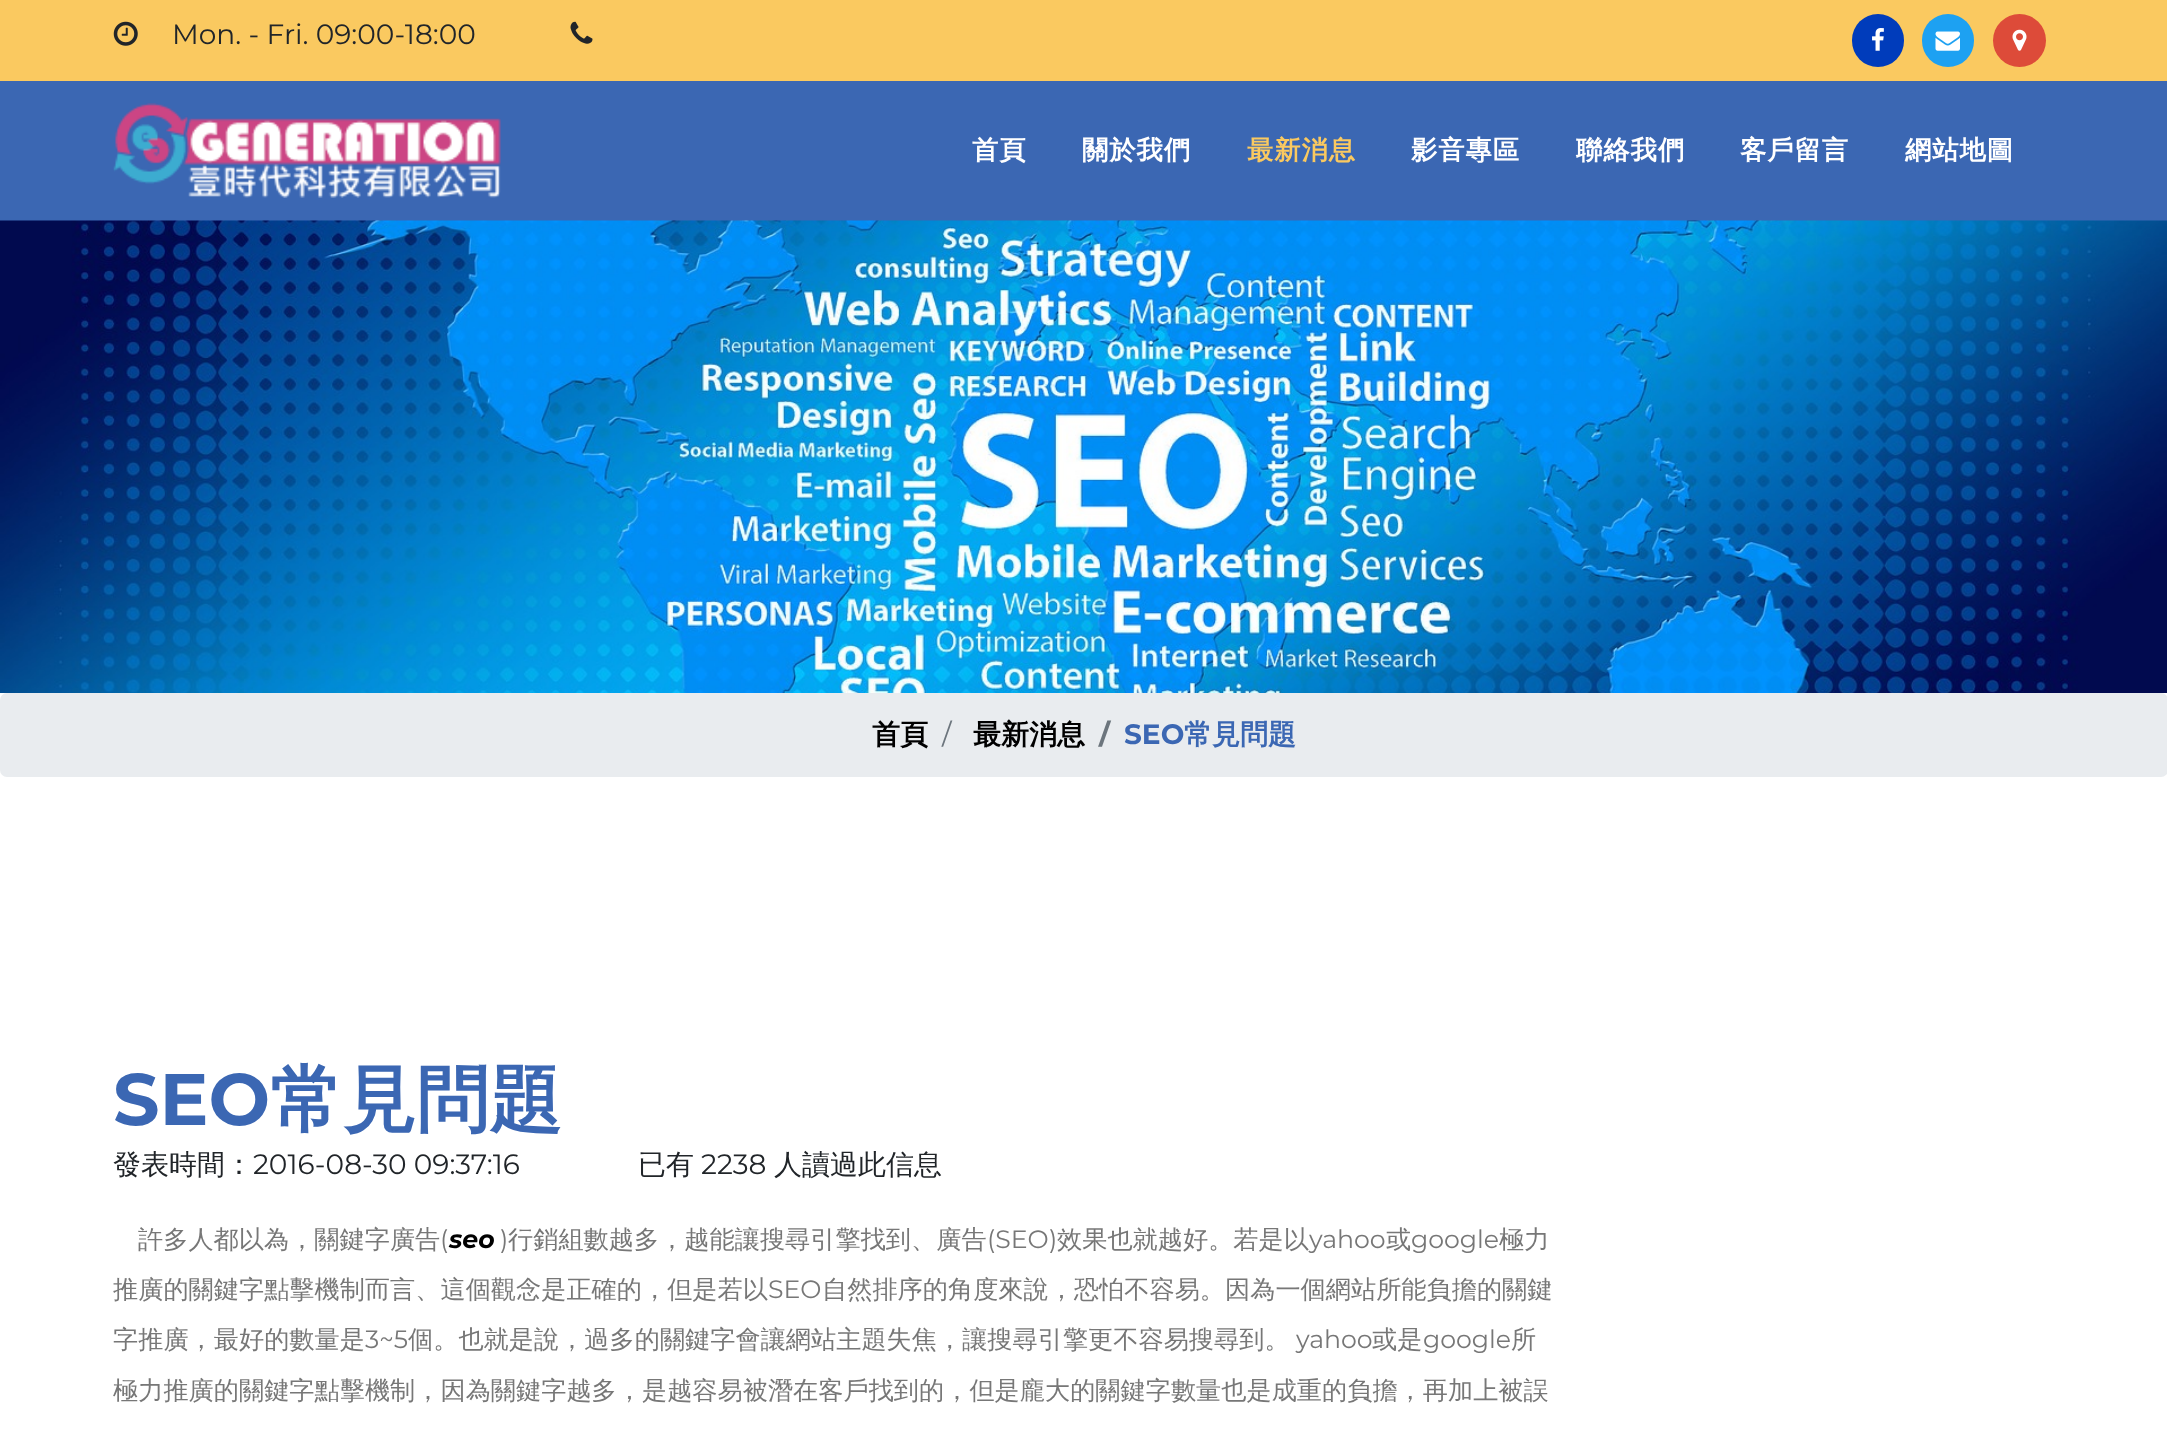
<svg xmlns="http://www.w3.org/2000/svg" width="2167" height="1434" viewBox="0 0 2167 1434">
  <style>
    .t1 { font: 28px Montserrat; fill: #212529; }
    .t2 { font: bold 26.25px WenQuanYi Zen Hei; letter-spacing: 1px; fill: #fff; }
    .t3 { font: bold 26.25px WenQuanYi Zen Hei; letter-spacing: 1px; fill: #fac960; }
    .t4 { font: bold 28px WenQuanYi Zen Hei; fill: #000; }
    .t5 { font: 28px Montserrat; fill: #6c757d; }
    .t6 { font: bold 28px Montserrat; fill: #6c757d; }
    .t7 { font: bold 28px Montserrat; fill: #3b67b3; }
    .t8 { font: bold 28px WenQuanYi Zen Hei; fill: #3b67b3; }
    .t9 { font: bold 73px Montserrat; fill: #3b67b3; }
    .t10 { font: bold 73px WenQuanYi Zen Hei; fill: #3b67b3; }
    .t11 { font: 500 28px WenQuanYi Zen Hei; fill: #212529; }
    .t12 { font: 500 25.2px WenQuanYi Zen Hei; fill: #777; }
    .t13 { font: 25.2px Montserrat; fill: #777; }
    .t14 { font: italic bold 25.2px Montserrat; fill: #000; }
  </style>
  <rect width="100%" height="100%" fill="#fff"/>
  <rect x="0" y="0" width="2167" height="81" fill="#fac960"/>
  <image x="113" y="21" width="25" height="25" href="images/1.png"/>
  <text x="172" y="44" class="t1">Mon. - Fri. 09:00-18:00</text>
  <image x="570" y="21" width="23" height="23" href="images/2.png"/>
  <rect x="1852" y="14" width="52" height="53" rx="26" fill="#003cbb"/>
  <image x="1872" y="28" width="12" height="23" href="images/3.png"/>
  <rect x="1922" y="14" width="52" height="53" rx="26" fill="#1da1f2"/>
  <image x="1935" y="31" width="25" height="20" href="images/4.png"/>
  <circle cx="2019.5" cy="40.5" r="26.5" fill="#dd4b39"/>
  <image x="2012" y="29" width="15" height="22" href="images/5.png"/>
  <rect x="0" y="81" width="2167" height="140" fill="#3b67b3"/>
  <image x="113" y="103" width="388" height="95" href="images/6.png"/>
  <text x="972" y="159" class="t2">首頁</text>
  <text x="1082" y="159" class="t2">關於我們</text>
  <text x="1247" y="159" class="t3">最新消息</text>
  <text x="1411" y="159" class="t2">影音專區</text>
  <text x="1576" y="159" class="t2">聯絡我們</text>
  <text x="1740" y="159" class="t2">客戶留言</text>
  <text x="1905" y="159" class="t2">網站地圖</text>
  <image x="0" y="220" width="2167" height="473" href="images/7.png"/>
  <rect x="0" y="693" width="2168" height="84" rx="7" fill="#e9ecef"/>
  <text x="872" y="744" class="t4">首頁</text>
  <text x="942" y="744" class="t5">/</text>
  <text x="973" y="744" class="t4">最新消息</text>
  <text x="1099" y="744" class="t6">/</text>
  <text x="1124" y="744" class="t7">SEO</text>
  <text x="1184" y="744" class="t8">常見問題</text>
  <text x="113" y="1125" class="t9">SEO</text>
  <text x="270" y="1125" class="t10">常見問題</text>
  <text x="113" y="1174" class="t11">發表時間：</text>
  <text x="253" y="1174" class="t1">2016-08-30 09:37:16</text>
  <text x="638" y="1174" class="t11">已有</text>
  <text x="701" y="1174" class="t1">2238</text>
  <text x="774" y="1174" class="t11">人讀過此信息</text>
  <text x="138" y="1248" class="t12">許多人都以為，關鍵字廣告</text>
  <text x="440" y="1248" class="t13">(</text>
  <text x="449" y="1248" class="t14">seo</text>
  <text x="500" y="1248" class="t13">)</text>
  <text x="508" y="1248" class="t12">行銷組數越多，越能讓搜尋引擎找到、廣告</text>
  <text x="987" y="1248" class="t13">(SEO)</text>
  <text x="1057" y="1248" class="t12">效果也就越好。若是以</text>
  <text x="1309" y="1248" class="t13">yahoo</text>
  <text x="1386" y="1248" class="t12">或</text>
  <text x="1411" y="1248" class="t13">google</text>
  <text x="1499" y="1248" class="t12">極力</text>
  <text x="113" y="1298" class="t12">推廣的關鍵字點擊機制而言、這個觀念是正確的，但是若以</text>
  <text x="768" y="1298" class="t13">SEO</text>
  <text x="822" y="1298" class="t12">自然排序的角度來說，恐怕不容易。因為一個網站所能負擔的關鍵</text>
  <text x="113" y="1348" class="t12">字推廣，最好的數量是</text>
  <text x="365" y="1348" class="t13">3~5</text>
  <text x="408" y="1348" class="t12">個。也就是說，過多的關鍵字會讓網站主題失焦，讓搜尋引擎更不容易搜尋到。</text>
  <text x="1296" y="1348" class="t13">yahoo</text>
  <text x="1372" y="1348" class="t12">或是</text>
  <text x="1423" y="1348" class="t13">google</text>
  <text x="1511" y="1348" class="t12">所</text>
  <text x="113" y="1399" class="t12">極力推廣的關鍵字點擊機制，因為關鍵字越多，是越容易被潛在客戶找到的，但是龐大的關鍵字數量也是成重的負擔，再加上被誤</text>
</svg>
